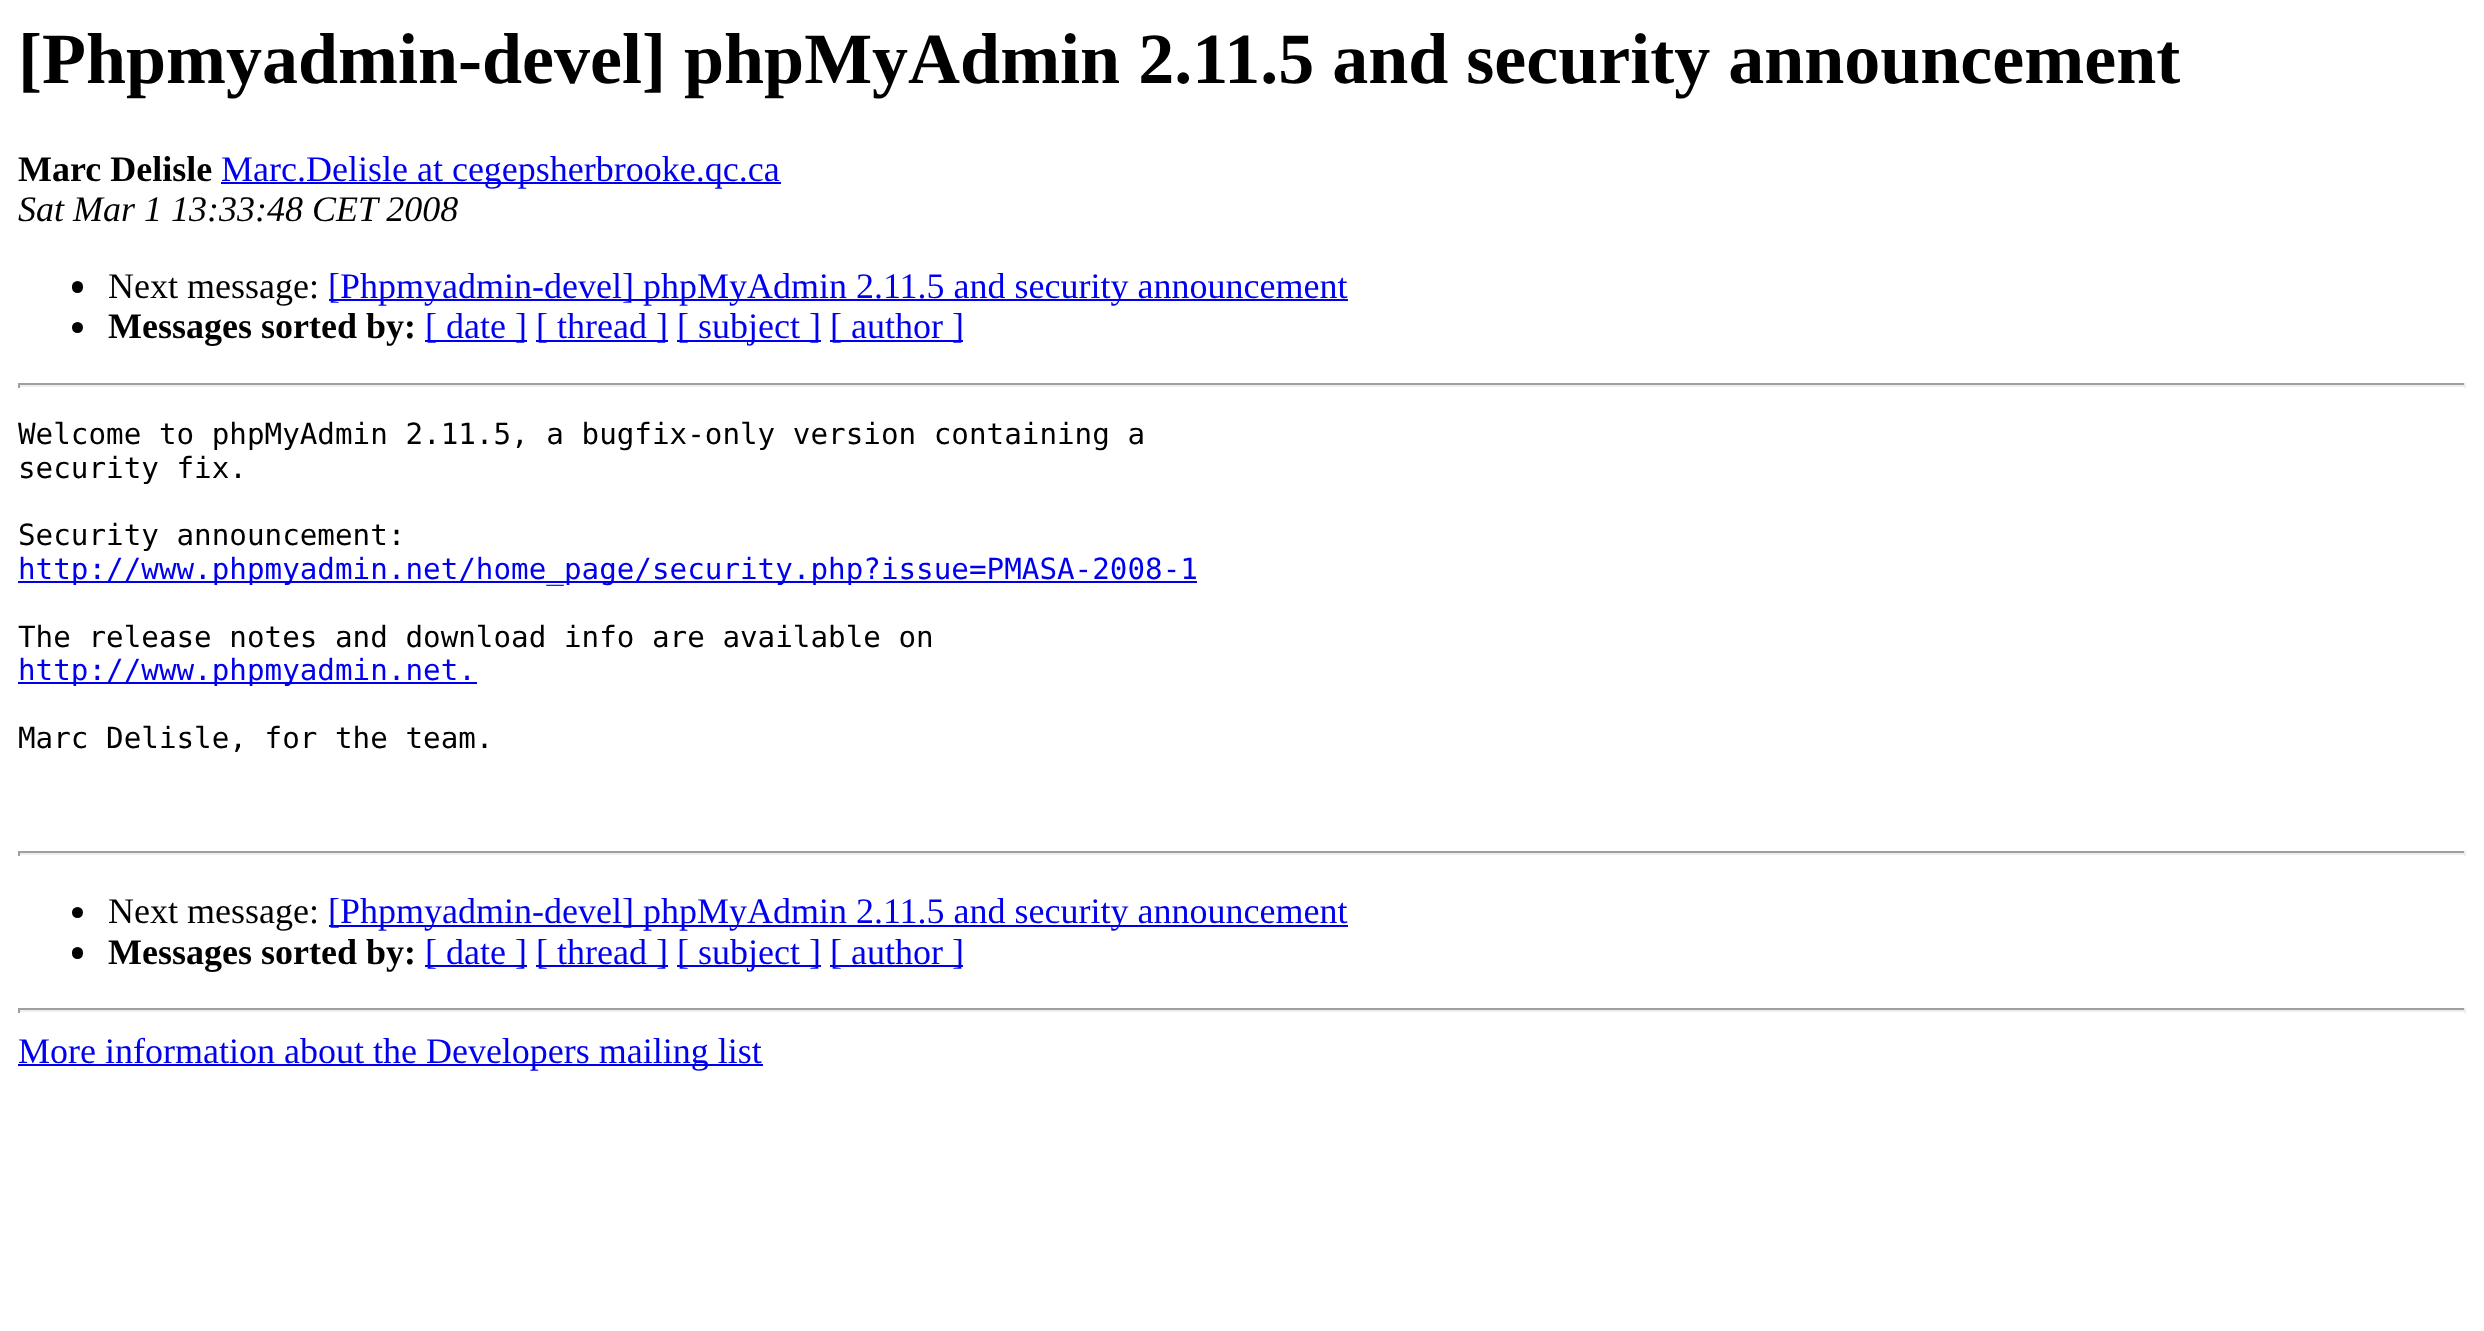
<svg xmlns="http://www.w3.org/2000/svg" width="2484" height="1331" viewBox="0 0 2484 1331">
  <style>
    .t1 { font: bold 72px Liberation Serif; fill: #000; }
    .t2 { font: bold 36px Liberation Serif; fill: #000; }
    .t3 { font: 36px Liberation Serif; fill: #00e; }
    .t4 { font: italic 36px Liberation Serif; fill: #000; }
    .t5 { font: 36px Liberation Serif; fill: #000; }
    .t6 { font: 29.25px DejaVu Sans Mono; fill: #000; }
    .t7 { font: 29.25px DejaVu Sans Mono; fill: #00e; }
  </style>
  <rect width="100%" height="100%" fill="#fff"/>
  <text x="18" y="83" class="t1">[Phpmyadmin-devel] phpMyAdmin 2.11.5 and security announcement</text>
  <text x="18" y="181" class="t2">Marc Delisle</text>
  <rect x="221" y="182" width="560" height="2" fill="#00e"/>
  <text x="221" y="181" class="t3">Marc.Delisle at cegepsherbrooke.qc.ca</text>
  <text x="18" y="221" class="t4">Sat Mar 1 13:33:48 CET 2008</text>
  <rect x="72" y="281" width="11" height="12" rx="5.5" fill="#000"/>
  <text x="108" y="298" class="t5">Next message:</text>
  <rect x="329" y="299" width="1019" height="2" fill="#00e"/>
  <text x="328" y="298" class="t3">[Phpmyadmin-devel] phpMyAdmin 2.11.5 and security announcement</text>
  <circle cx="77.5" cy="327.5" r="5.5" fill="#000"/>
  <text x="108" y="338" class="t2">Messages sorted by:</text>
  <rect x="425" y="340" width="102" height="2" fill="#00e"/>
  <text x="425" y="338" class="t3">[ date ]</text>
  <rect x="536" y="340" width="132" height="2" fill="#00e"/>
  <text x="536" y="338" class="t3">[ thread ]</text>
  <rect x="677" y="340" width="144" height="2" fill="#00e"/>
  <text x="677" y="338" class="t3">[ subject ]</text>
  <rect x="830" y="340" width="133" height="2" fill="#00e"/>
  <text x="830" y="338" class="t3">[ author ]</text>
  <rect x="18" y="383" width="2448" height="2" fill="#9f9f9f"/>
  <rect x="2464" y="383" width="2" height="5" fill="#eee"/>
  <rect x="18" y="385" width="2448" height="2" fill="#eee"/>
  <rect x="18" y="383" width="2" height="5" fill="#9f9f9f"/>
  <text x="18" y="444" class="t6">Welcome to phpMyAdmin 2.11.5, a bugfix-only version containing a</text>
  <text x="18" y="478" class="t6">security fix.</text>
  <text x="18" y="545" class="t6">Security announcement:</text>
  <rect x="18" y="581" width="1179" height="2" fill="#00e"/>
  <text x="18" y="579" class="t7">http://www.phpmyadmin.net/home_page/security.php?issue=PMASA-2008-1</text>
  <text x="18" y="647" class="t6">The release notes and download info are available on</text>
  <rect x="18" y="682" width="459" height="2" fill="#00e"/>
  <text x="18" y="680" class="t7">http://www.phpmyadmin.net.</text>
  <text x="18" y="748" class="t6">Marc Delisle, for the team.</text>
  <rect x="18" y="851" width="2448" height="2" fill="#9f9f9f"/>
  <rect x="2464" y="851" width="2" height="5" fill="#eee"/>
  <rect x="18" y="853" width="2448" height="2" fill="#eee"/>
  <rect x="18" y="851" width="2" height="5" fill="#9f9f9f"/>
  <circle cx="77.5" cy="912.5" r="5.5" fill="#000"/>
  <text x="108" y="923" class="t5">Next message:</text>
  <rect x="329" y="925" width="1019" height="2" fill="#00e"/>
  <text x="328" y="923" class="t3">[Phpmyadmin-devel] phpMyAdmin 2.11.5 and security announcement</text>
  <rect x="72" y="947" width="11" height="12" rx="5.5" fill="#000"/>
  <text x="108" y="964" class="t2">Messages sorted by:</text>
  <rect x="425" y="965" width="102" height="2" fill="#00e"/>
  <text x="425" y="964" class="t3">[ date ]</text>
  <rect x="536" y="965" width="132" height="2" fill="#00e"/>
  <text x="536" y="964" class="t3">[ thread ]</text>
  <rect x="677" y="965" width="144" height="2" fill="#00e"/>
  <text x="677" y="964" class="t3">[ subject ]</text>
  <rect x="830" y="965" width="133" height="2" fill="#00e"/>
  <text x="830" y="964" class="t3">[ author ]</text>
  <rect x="18" y="1008" width="2448" height="2" fill="#9f9f9f"/>
  <rect x="2464" y="1008" width="2" height="5" fill="#eee"/>
  <rect x="18" y="1010" width="2448" height="2" fill="#eee"/>
  <rect x="18" y="1008" width="2" height="5" fill="#9f9f9f"/>
  <rect x="18" y="1064" width="745" height="2" fill="#00e"/>
  <text x="18" y="1063" class="t3">More information about the Developers mailing list</text>
</svg>
